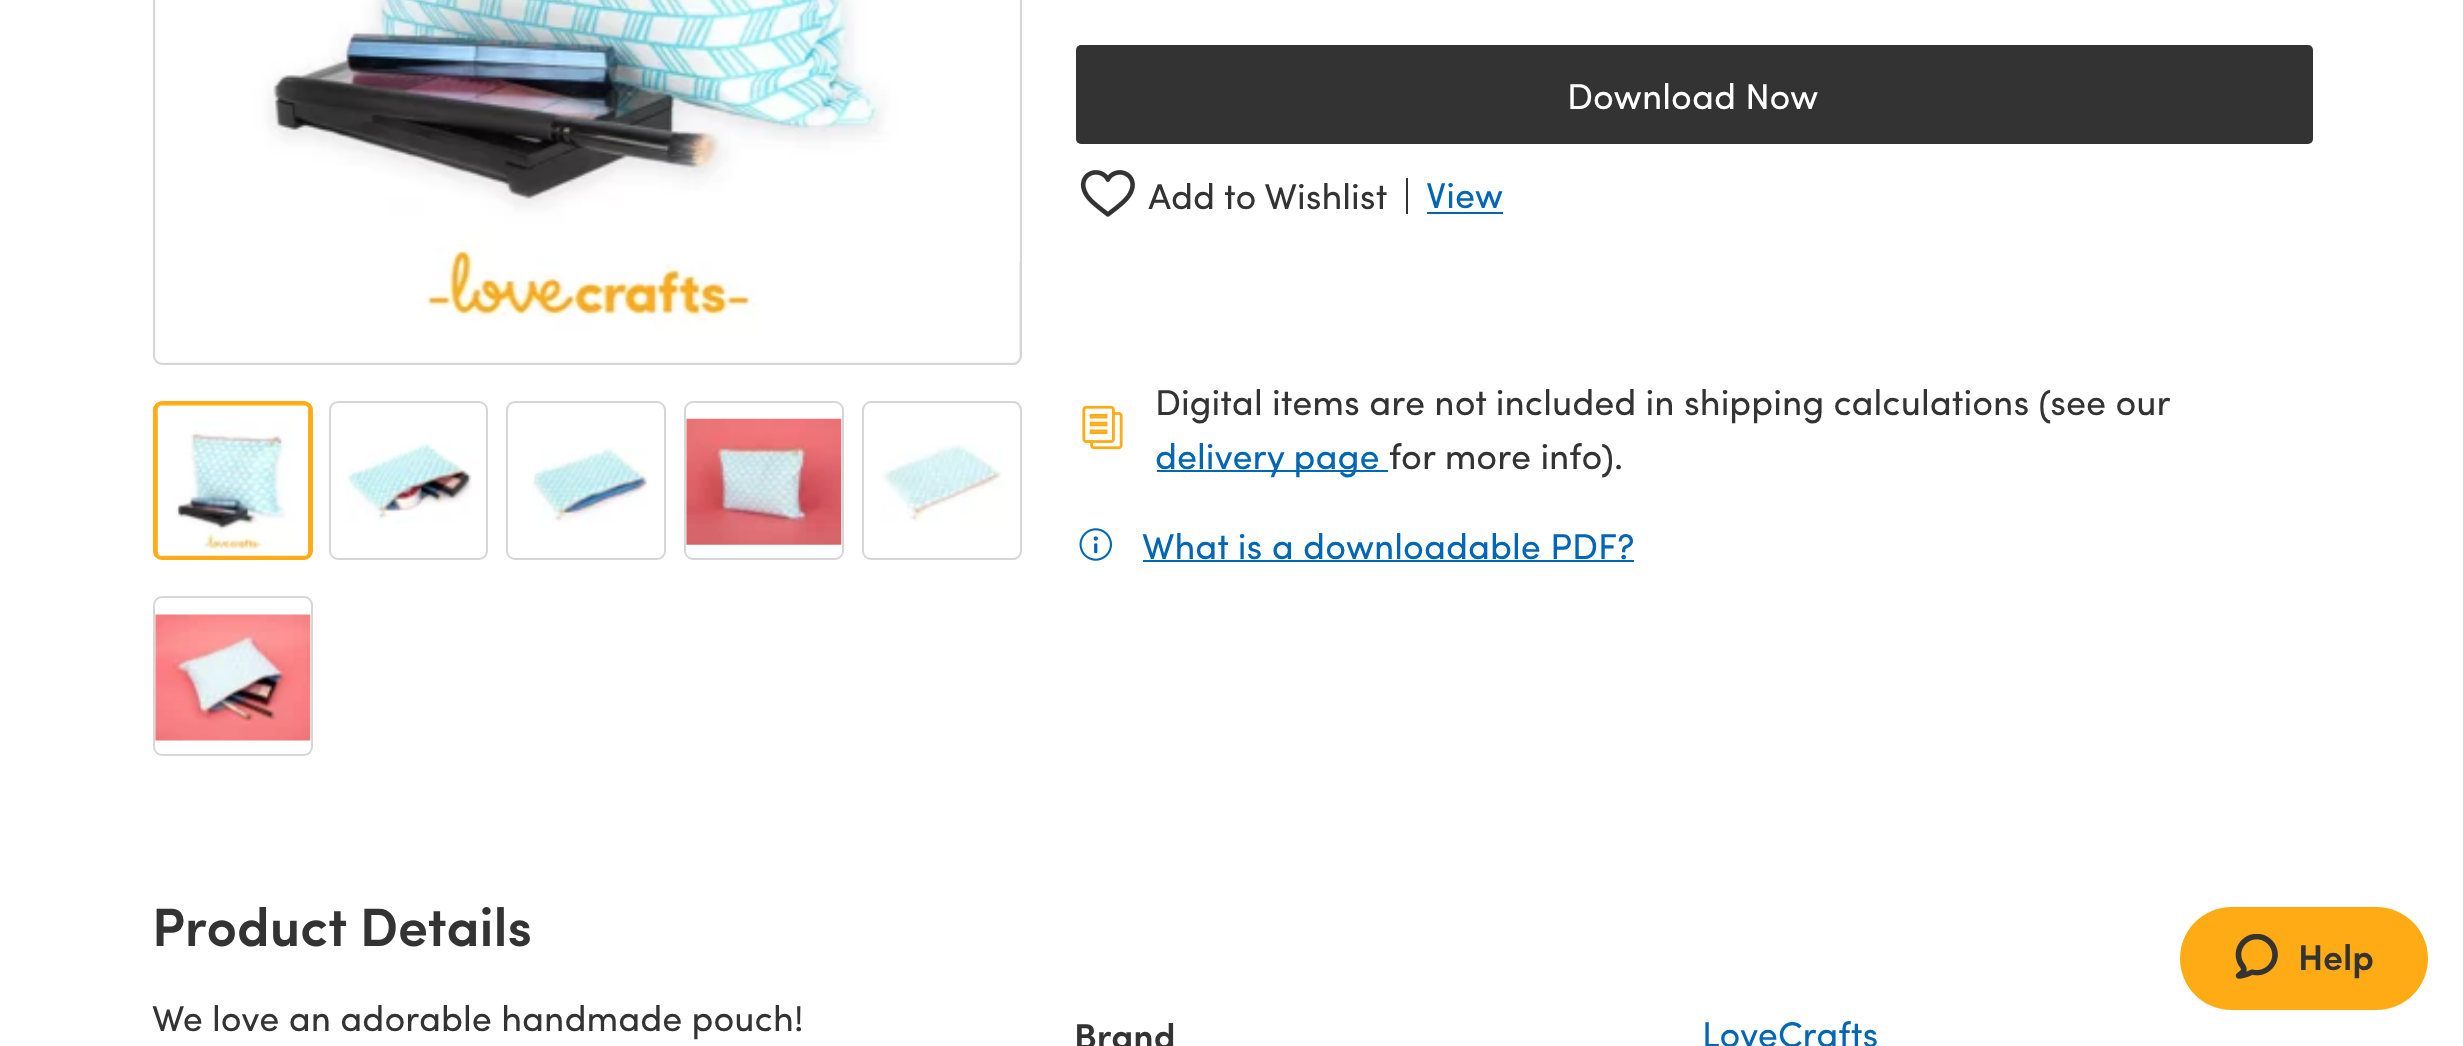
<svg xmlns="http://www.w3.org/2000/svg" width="2463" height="1046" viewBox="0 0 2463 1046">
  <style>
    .t1 { font: 36px Sofia; fill: #fff; }
    .t2 { font: 36px Sofia; fill: #333; }
    .t3 { font: 36px Sofia; fill: #0066b5; }
    .t4 { font: 54px 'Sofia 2'; fill: #333; }
    .t5 { font: 36px 'Sofia 2'; fill: #333; }
  </style>
  <rect width="100%" height="100%" fill="#fff"/>
  <rect x="154" y="-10" width="867" height="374" rx="8" fill="#eee" stroke="#d6d6d7" stroke-width="2"/>
  <image x="155" y="0" width="864" height="363" href="images/1.png"/>
  <rect x="1019" y="0" width="1" height="262" fill="#fbfbfb"/>
  <rect x="155.5" y="403.5" width="155" height="154" rx="6.5" fill="none" stroke="#ffab15" stroke-width="5"/>
  <image x="157" y="404" width="152" height="153" href="images/2.png"/>
  <rect x="330" y="402" width="157" height="157" rx="8" fill="none" stroke="#d6d6d7" stroke-width="2"/>
  <image x="347" y="443" width="125" height="81" href="images/3.png"/>
  <rect x="507" y="402" width="158" height="157" rx="8" fill="none" stroke="#d6d6d7" stroke-width="2"/>
  <image x="532" y="447" width="116" height="77" href="images/4.png"/>
  <rect x="685" y="402" width="158" height="157" rx="8" fill="none" stroke="#d6d6d7" stroke-width="2"/>
  <image x="686" y="418" width="156" height="127" href="images/5.png"/>
  <rect x="863" y="402" width="158" height="157" rx="8" fill="none" stroke="#d6d6d7" stroke-width="2"/>
  <image x="881" y="444" width="122" height="79" href="images/6.png"/>
  <rect x="154" y="597" width="158" height="158" rx="8" fill="none" stroke="#d6d6d7" stroke-width="2"/>
  <image x="155" y="614" width="156" height="127" href="images/7.png"/>
  <rect x="1076" y="45" width="1237" height="99" rx="5" fill="#333"/>
  <text x="1567" y="109" class="t1">Download Now</text>
  <image x="1080" y="170" width="55" height="47" href="images/8.png"/>
  <text x="1148" y="209" class="t2">Add to Wishlist</text>
  <rect x="1406" y="178" width="2" height="36" fill="#333"/>
  <text x="1426" y="208" class="t3">View</text>
  <rect x="1427" y="212" width="76" height="2" fill="#0066b5"/>
  <image x="1082" y="405" width="41" height="45" href="images/9.png"/>
  <text x="1155" y="415" class="t2">Digital items are not included in shipping calculations (see our</text>
  <rect x="1157" y="470" width="231" height="2" fill="#0066b5"/>
  <text x="1155" y="469" class="t3">delivery page</text>
  <text x="1389" y="469" class="t2">for more info).</text>
  <image x="1079" y="528" width="33" height="33" href="images/10.png"/>
  <text x="1142" y="559" class="t3">What is a downloadable PDF?</text>
  <rect x="1143" y="560" width="491" height="2" fill="#0066b5"/>
  <text x="152" y="946" class="t4">Product Details</text>
  <text x="152" y="1031" class="t2">We love an adorable handmade pouch!</text>
  <text x="1074" y="1049" class="t5">Brand</text>
  <text x="1702" y="1047" class="t3">LoveCrafts</text>
  <rect x="2180" y="907" width="248" height="103" rx="51.5" fill="#ffab15"/>
  <image x="2235" y="934" width="43" height="45" href="images/11.png"/>
  <text x="2298" y="970" class="t5">Help</text>
</svg>
